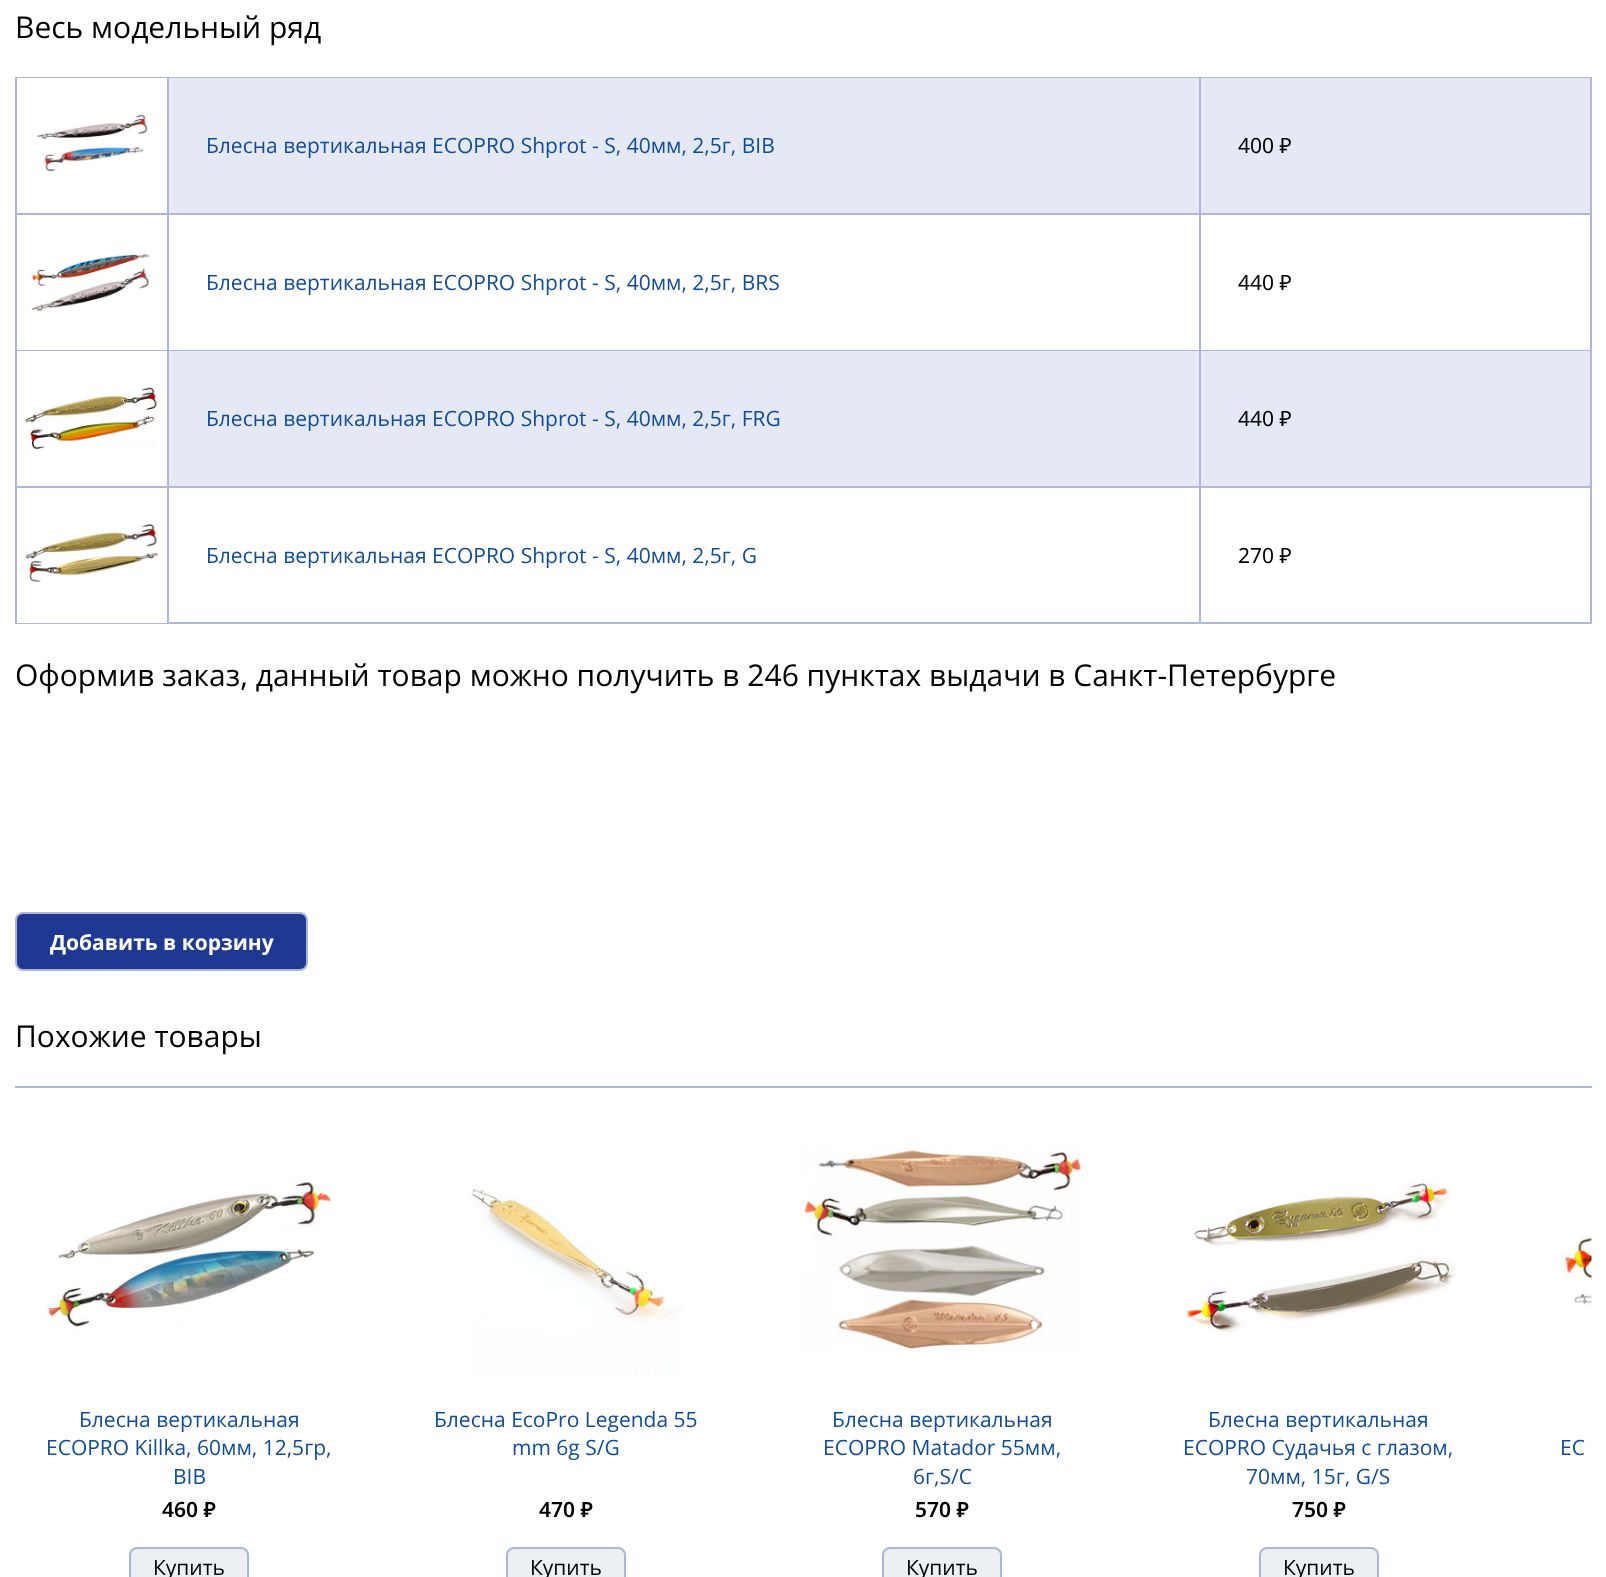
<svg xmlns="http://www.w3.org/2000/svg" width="1606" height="1577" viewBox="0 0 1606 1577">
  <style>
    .t1 { font: 30px Open Sans; fill: #000; }
    .t2 { font: 21px Open Sans; fill: #104c9a; }
    .t3 { font: 21px Noto Sans; fill: #000; }
    .t4 { font: bold 21px Open Sans; fill: #fff; }
    .t5 { font: 600 21px Noto Sans; fill: #000; }
    .t6 { font: 21px Open Sans; fill: #000; }
  </style>
  <rect width="100%" height="100%" fill="#fff"/>
  <text x="15" y="38" class="t1">Весь модельный ряд</text>
  <rect x="16" y="78" width="1575" height="545" fill="none" stroke="#b1b5d8" stroke-width="2"/>
  <rect x="169" y="78" width="1421" height="135" fill="#e5e9f5"/>
  <rect x="17" y="213" width="1573" height="2" fill="#b1b5d8"/>
  <rect x="17" y="78" width="150" height="1" fill="#fff"/>
  <rect x="167" y="78" width="2" height="135" fill="#b1b5d8"/>
  <image x="37" y="114" width="111" height="58" href="images/1.png"/>
  <text x="206" y="153" class="t2">Блесна вертикальная ECOPRO Shprot - S, 40мм, 2,5г, BIB</text>
  <rect x="1199" y="78" width="2" height="135" fill="#b1b5d8"/>
  <text x="1238" y="153" class="t3">400 ₽</text>
  <rect x="17" y="350" width="1573" height="1" fill="#b1b5d8"/>
  <rect x="167" y="215" width="2" height="135" fill="#b1b5d8"/>
  <image x="31" y="254" width="119" height="58" href="images/2.png"/>
  <text x="206" y="290" class="t2">Блесна вертикальная ECOPRO Shprot - S, 40мм, 2,5г, BRS</text>
  <rect x="1199" y="215" width="2" height="135" fill="#b1b5d8"/>
  <text x="1238" y="290" class="t3">440 ₽</text>
  <rect x="169" y="351" width="1421" height="135" fill="#e5e9f5"/>
  <rect x="17" y="486" width="1573" height="2" fill="#b1b5d8"/>
  <rect x="167" y="351" width="2" height="135" fill="#b1b5d8"/>
  <image x="24" y="387" width="134" height="63" href="images/3.png"/>
  <text x="206" y="426" class="t2">Блесна вертикальная ECOPRO Shprot - S, 40мм, 2,5г, FRG</text>
  <rect x="1199" y="351" width="2" height="135" fill="#b1b5d8"/>
  <text x="1238" y="426" class="t3">440 ₽</text>
  <rect x="17" y="622" width="150" height="1" fill="#fff"/>
  <rect x="167" y="488" width="2" height="135" fill="#b1b5d8"/>
  <image x="24" y="524" width="135" height="58" href="images/4.png"/>
  <text x="206" y="563" class="t2">Блесна вертикальная ECOPRO Shprot - S, 40мм, 2,5г, G</text>
  <rect x="1199" y="488" width="2" height="135" fill="#b1b5d8"/>
  <text x="1238" y="563" class="t3">270 ₽</text>
  <text x="15" y="686" class="t1">Оформив заказ, данный товар можно получить в 246 пунктах выдачи в Санкт-Петербурге</text>
  <rect x="16" y="913" width="291" height="57" rx="7" fill="#1f3992" stroke="#adb6d8" stroke-width="2"/>
  <text x="50" y="950" class="t4">Добавить в корзину</text>
  <text x="15" y="1047" class="t1">Похожие товары</text>
  <rect x="15" y="1086" width="1577" height="2" fill="#adb6d8"/>
  <image x="46" y="1180" width="286" height="152" href="images/5.png"/>
  <text x="79" y="1427" class="t2">Блесна вертикальная</text>
  <text x="46" y="1455" class="t2">ECOPRO Killka, 60мм, 12,5гр,</text>
  <text x="173" y="1484" class="t2">BIB</text>
  <text x="162" y="1517" class="t5">460 ₽</text>
  <rect x="130" y="1548" width="118" height="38" rx="7" fill="#ebf0f3" stroke="#adb6d8" stroke-width="2"/>
  <text x="153" y="1575" class="t6">Купить</text>
  <image x="469" y="1189" width="213" height="187" href="images/6.png"/>
  <text x="434" y="1427" class="t2">Блесна EcoPro Legenda 55</text>
  <text x="512" y="1455" class="t2">mm 6g S/G</text>
  <text x="539" y="1517" class="t5">470 ₽</text>
  <rect x="507" y="1548" width="118" height="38" rx="7" fill="#ebf0f3" stroke="#adb6d8" stroke-width="2"/>
  <text x="530" y="1575" class="t6">Купить</text>
  <image x="800" y="1146" width="281" height="206" href="images/7.png"/>
  <text x="832" y="1427" class="t2">Блесна вертикальная</text>
  <text x="823" y="1455" class="t2">ECOPRO Matador 55мм,</text>
  <text x="913" y="1484" class="t2">6г,S/C</text>
  <text x="915" y="1517" class="t5">570 ₽</text>
  <rect x="883" y="1548" width="118" height="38" rx="7" fill="#ebf0f3" stroke="#adb6d8" stroke-width="2"/>
  <text x="906" y="1575" class="t6">Купить</text>
  <image x="1185" y="1180" width="272" height="153" href="images/8.png"/>
  <text x="1208" y="1427" class="t2">Блесна вертикальная</text>
  <text x="1183" y="1455" class="t2">ECOPRO Судачья с глазом,</text>
  <text x="1246" y="1484" class="t2">70мм, 15г, G/S</text>
  <text x="1292" y="1517" class="t5">750 ₽</text>
  <rect x="1260" y="1548" width="118" height="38" rx="7" fill="#ebf0f3" stroke="#adb6d8" stroke-width="2"/>
  <text x="1283" y="1575" class="t6">Купить</text>
  <image x="1560" y="1236" width="32" height="70" href="images/9.png"/>
  <text x="1560" y="1455" class="t2">EC</text>
</svg>
